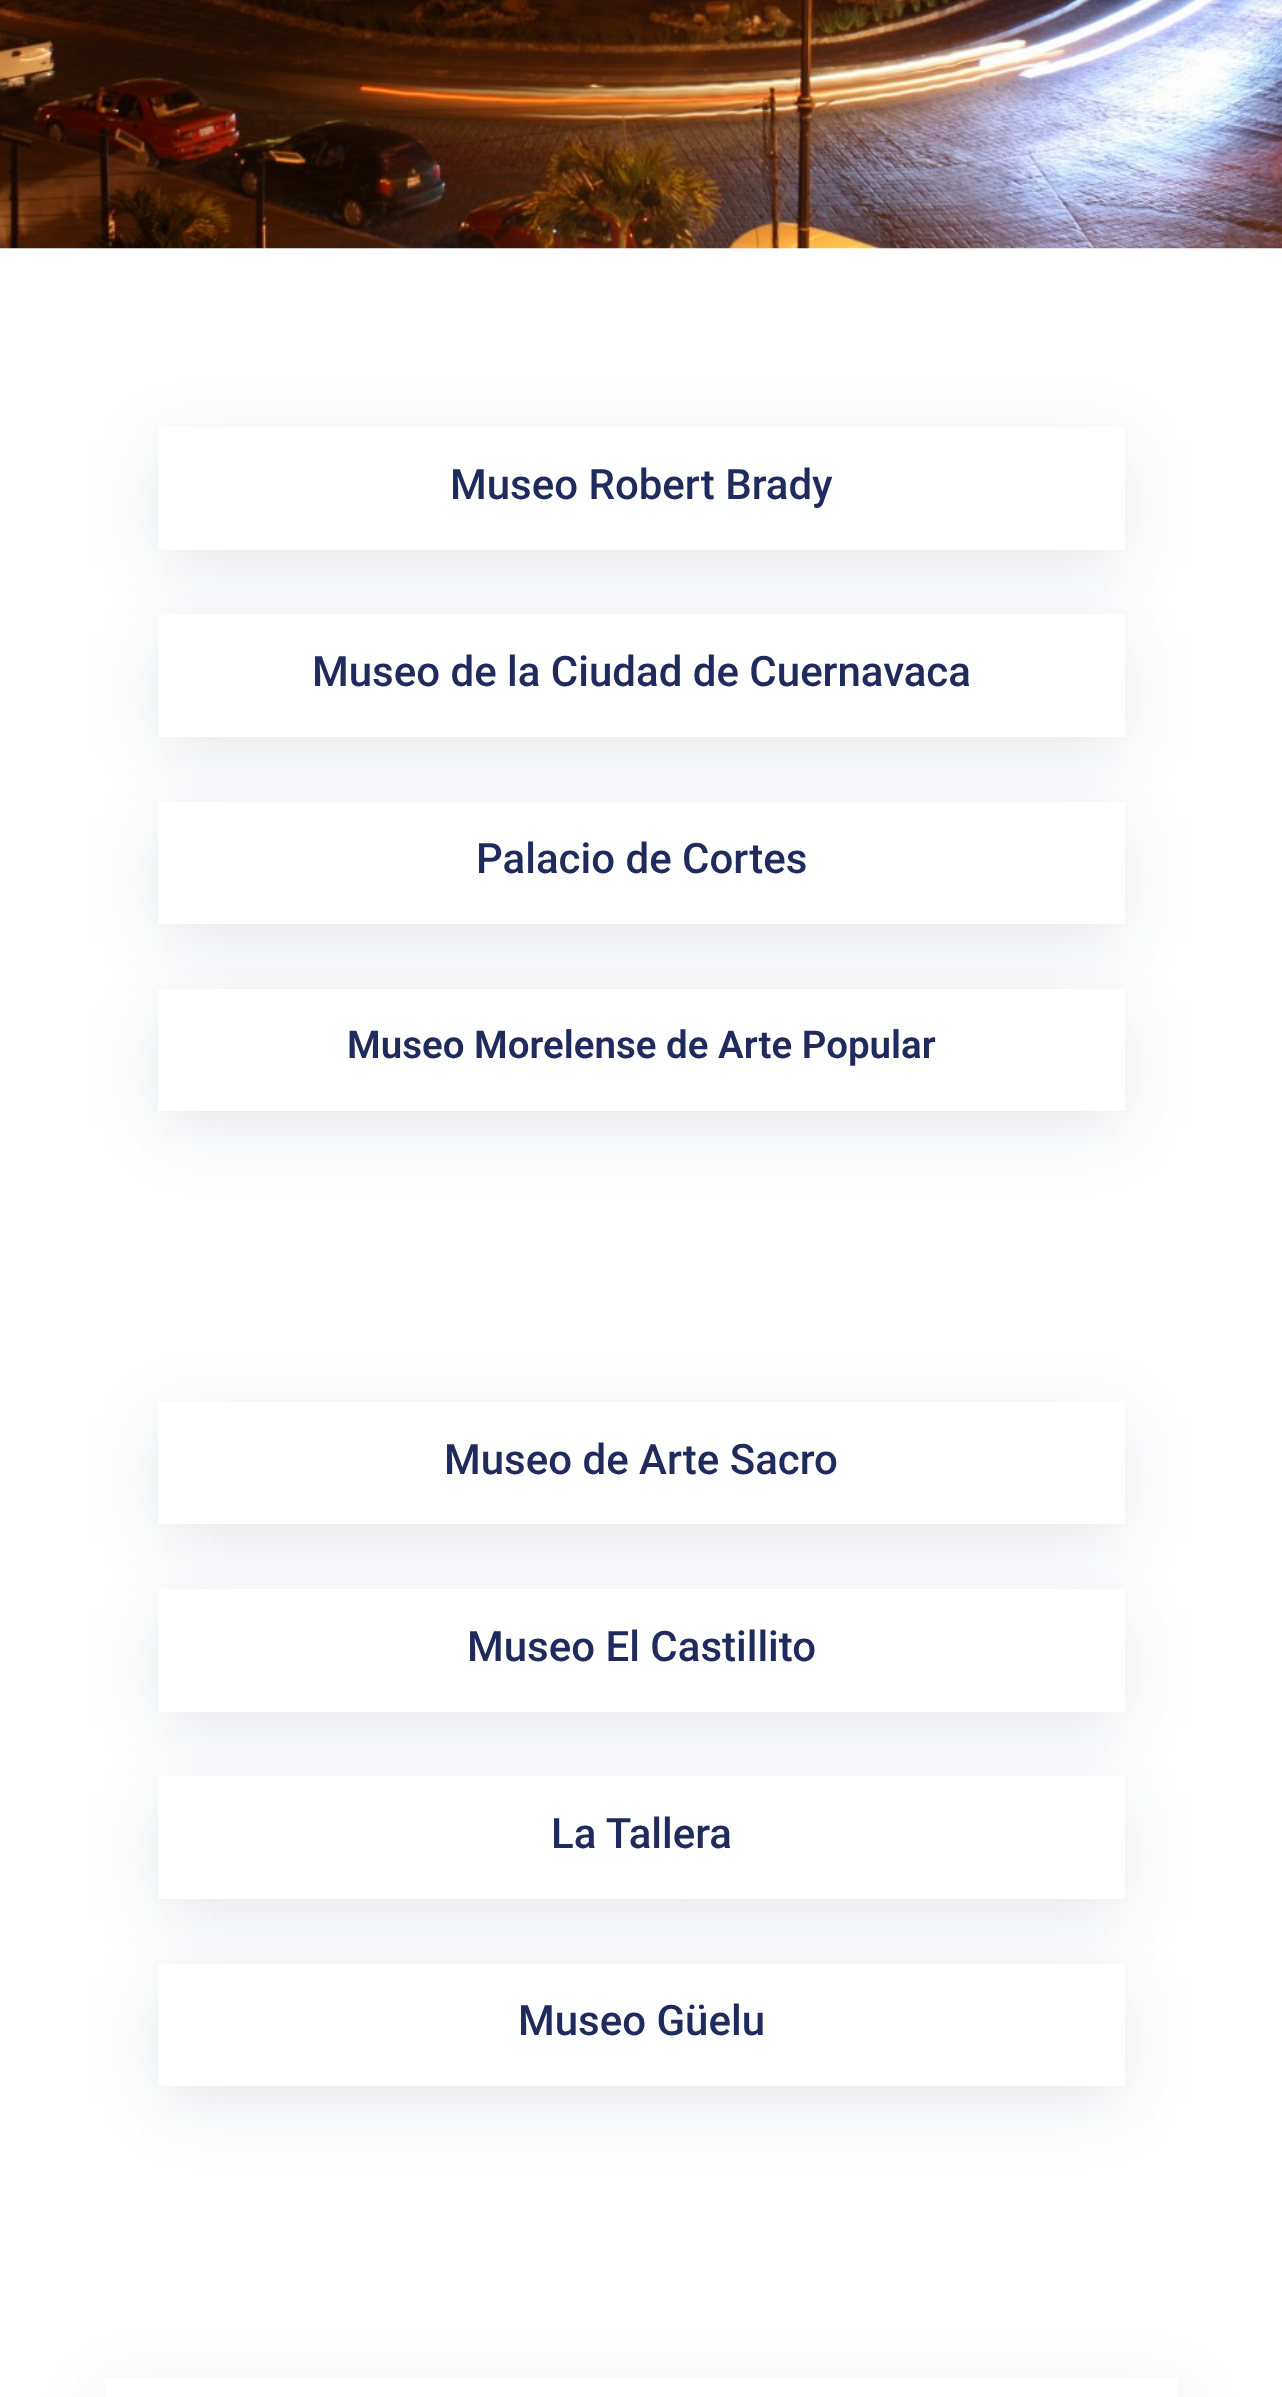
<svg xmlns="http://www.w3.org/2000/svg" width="1282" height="2397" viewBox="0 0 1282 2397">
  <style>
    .t1 { font: 500 42px Roboto; fill: #202b5d; }
    .t2 { font: 600 38.5px Roboto; fill: #202b5d; }
  </style>
  <defs>
    <clipPath id="clip1"><path d="M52 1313H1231V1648H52ZM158 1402H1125V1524H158Z" clip-rule="evenodd"/></clipPath>
  </defs>
  <rect width="100%" height="100%" fill="#fff"/>
  <image x="0" y="0" width="1282" height="249" href="images/1.png"/>
  <rect x="158" y="445" width="967" height="122" fill="#06163a1a" filter="blur(35px)"/>
  <rect x="158" y="427" width="967" height="123" fill="#fff"/>
  <text x="450" y="499" class="t1">Museo Robert Brady</text>
  <rect x="158" y="632" width="967" height="122" fill="#06163a1a" filter="blur(35px)"/>
  <rect x="158" y="614" width="967" height="123" fill="#fff"/>
  <text x="312" y="686" class="t1">Museo de la Ciudad de Cuernavaca</text>
  <path d="M685.5 736L693.5 728L685.5 720" fill="none" stroke="#fff" stroke-width="2.6" stroke-linecap="round" stroke-linejoin="round"/>
  <rect x="158" y="819" width="967" height="123" fill="#06163a1a" filter="blur(35px)"/>
  <rect x="158" y="802" width="967" height="122" fill="#fff"/>
  <text x="476" y="873" class="t1">Palacio de Cortes</text>
  <path d="M685.5 923L693.5 915L685.5 907.5" fill="none" stroke="#fff" stroke-width="2.6" stroke-linecap="round" stroke-linejoin="round"/>
  <rect x="158" y="1006" width="967" height="123" fill="#06163a1a" filter="blur(35px)"/>
  <rect x="158" y="989" width="967" height="122" fill="#fff"/>
  <text x="347" y="1058" class="t2">Museo Morelense de Arte Popular</text>
  <g clip-path="url(#clip1)">
    <rect x="158" y="1419" width="967" height="123" fill="#06163a1a" filter="blur(35px)"/>
  </g>
  <text x="444" y="1474" class="t1">Museo de Arte Sacro</text>
  <rect x="158" y="1607" width="967" height="122" fill="#06163a1a" filter="blur(35px)"/>
  <rect x="158" y="1589" width="967" height="123" fill="#fff"/>
  <text x="467" y="1661" class="t1">Museo El Castillito</text>
  <rect x="158" y="1794" width="967" height="122" fill="#06163a1a" filter="blur(35px)"/>
  <rect x="158" y="1776" width="967" height="123" fill="#fff"/>
  <text x="551" y="1848" class="t1">La Tallera</text>
  <path d="M685.5 1898L693.5 1890L685.5 1882" fill="none" stroke="#fff" stroke-width="2.6" stroke-linecap="round" stroke-linejoin="round"/>
  <rect x="158" y="1981" width="967" height="123" fill="#06163a1a" filter="blur(35px)"/>
  <rect x="158" y="1964" width="967" height="122" fill="#fff"/>
  <text x="518" y="2035" class="t1">Museo Güelu</text>
  <path d="M685.5 2085L693.5 2077L685.5 2069.5" fill="none" stroke="#fff" stroke-width="2.6" stroke-linecap="round" stroke-linejoin="round"/>
  <rect x="105" y="2396" width="1073" height="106" fill="#06163a1a" filter="blur(35px)"/>
  <rect x="105" y="2378" width="1073" height="19" fill="#fff"/>
</svg>
